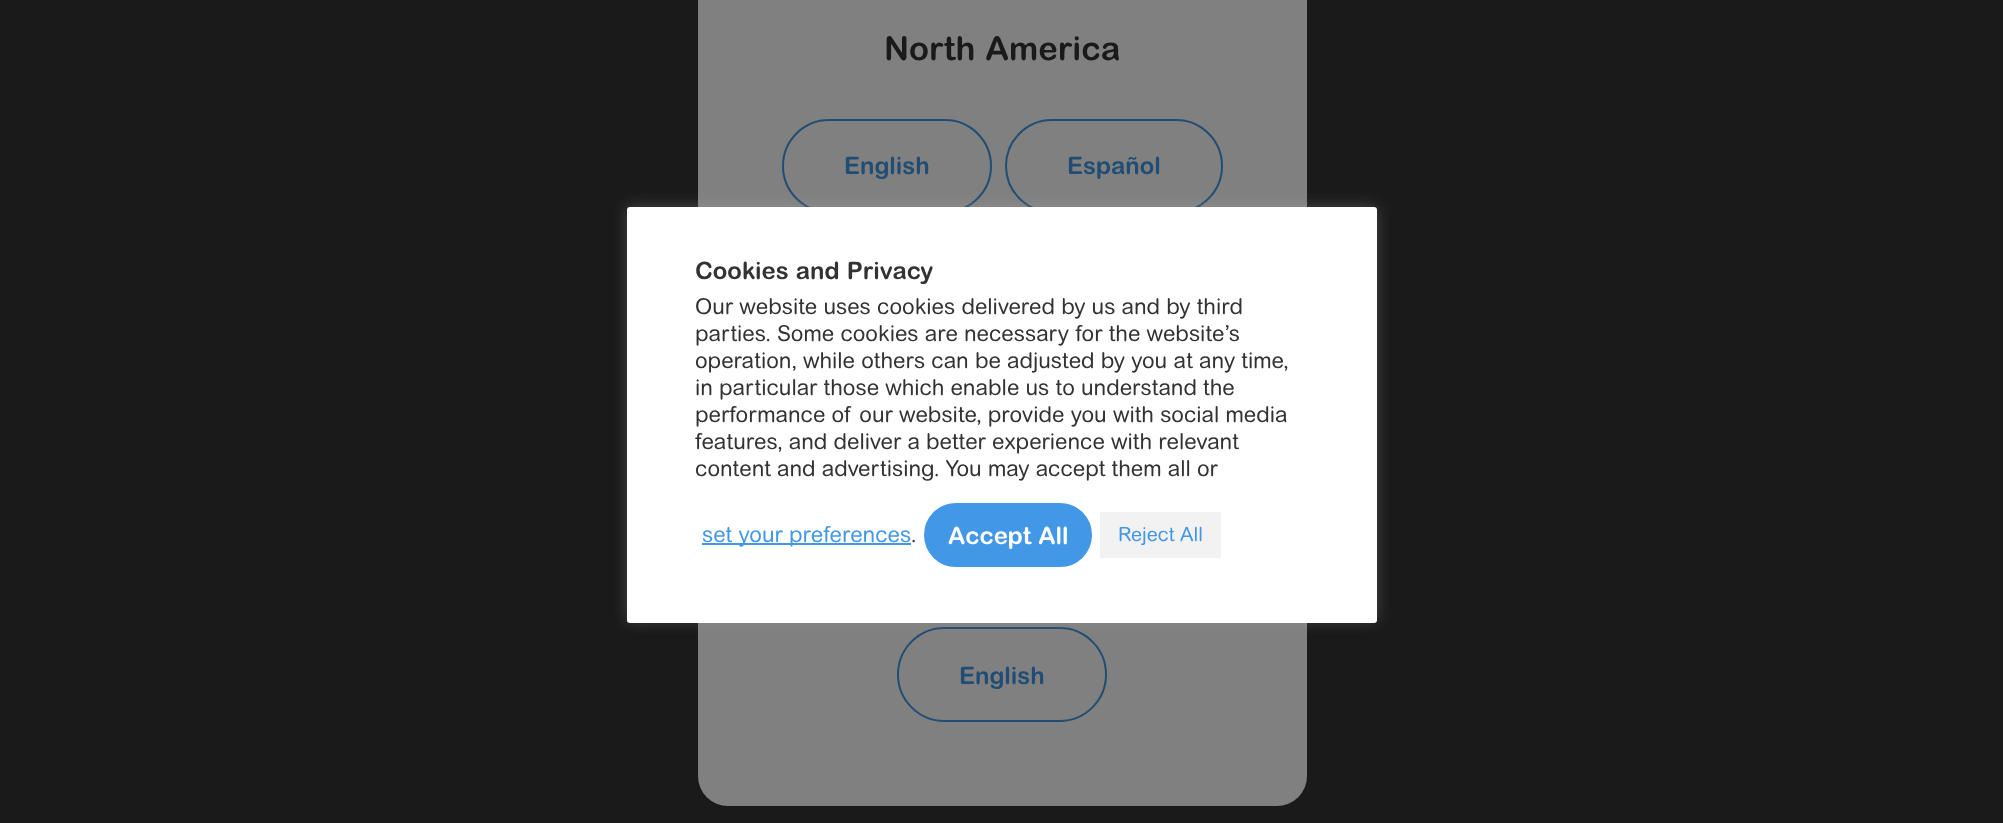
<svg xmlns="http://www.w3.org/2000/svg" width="2003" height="823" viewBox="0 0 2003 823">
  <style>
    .t1 { font: bold 33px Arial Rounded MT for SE; fill: #1a1a1a; }
    .t2 { font: bold 24px Arial Rounded MT for SE; fill: #214c73; }
    .t3 { font: bold 24px Arial Rounded MT for SE; fill: #333; }
    .t4 { font: 22px Arial Rounded MT for SE; fill: #333; }
    .t5 { font: 22px Arial Rounded MT for SE; fill: #4298e6; }
    .t6 { font: bold 24px Arial Rounded MT for SE; fill: #fff; }
    .t7 { font: 19.5px Arial Rounded MT for SE; fill: #4298e6; }
  </style>
  <rect width="100%" height="100%" fill="#1a1a1a"/>
  <rect x="698" y="-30" width="609" height="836" rx="30" fill="#808080"/>
  <text x="884" y="60" class="t1">North America</text>
  <rect x="783" y="120" width="208" height="92" rx="46" fill="none" stroke="#214c73" stroke-width="2"/>
  <text x="844" y="174" class="t2">English</text>
  <rect x="1006" y="120" width="216" height="92" rx="46" fill="none" stroke="#214c73" stroke-width="2"/>
  <text x="1067" y="174" class="t2">Español</text>
  <rect x="898" y="628" width="208" height="93" rx="46.5" fill="none" stroke="#214c73" stroke-width="2"/>
  <text x="959" y="684" class="t2">English</text>
  <rect x="627" y="206" width="750" height="415" rx="3" fill="#acabab4d" filter="blur(7.5px)"/>
  <rect x="627" y="207" width="750" height="416" rx="3" fill="#fff"/>
  <text x="695" y="279" class="t3">Cookies and Privacy</text>
  <text x="695" y="314" class="t4">Our website uses cookies delivered by us and by third</text>
  <text x="695" y="341" class="t4">parties. Some cookies are necessary for the website’s</text>
  <text x="695" y="368" class="t4">operation, while others can be adjusted by you at any time,</text>
  <text x="695" y="395" class="t4">in particular those which enable us to understand the</text>
  <text x="695" y="422" class="t4">performance of our website, provide you with social media</text>
  <text x="695" y="449" class="t4">features, and deliver a better experience with relevant</text>
  <text x="695" y="476" class="t4">content and advertising. You may accept them all or</text>
  <rect x="702" y="543" width="209" height="2" fill="#4298e6"/>
  <text x="702" y="542" class="t5">set your preferences</text>
  <text x="911" y="542" class="t4">.</text>
  <rect x="925" y="504" width="166" height="62" rx="31" fill="#4298e6" stroke="#4298e6" stroke-width="2"/>
  <text x="948" y="544" class="t6">Accept All</text>
  <rect x="1100" y="512" width="121" height="46" fill="#f3f2f2"/>
  <text x="1118" y="541" class="t7">Reject All</text>
</svg>
